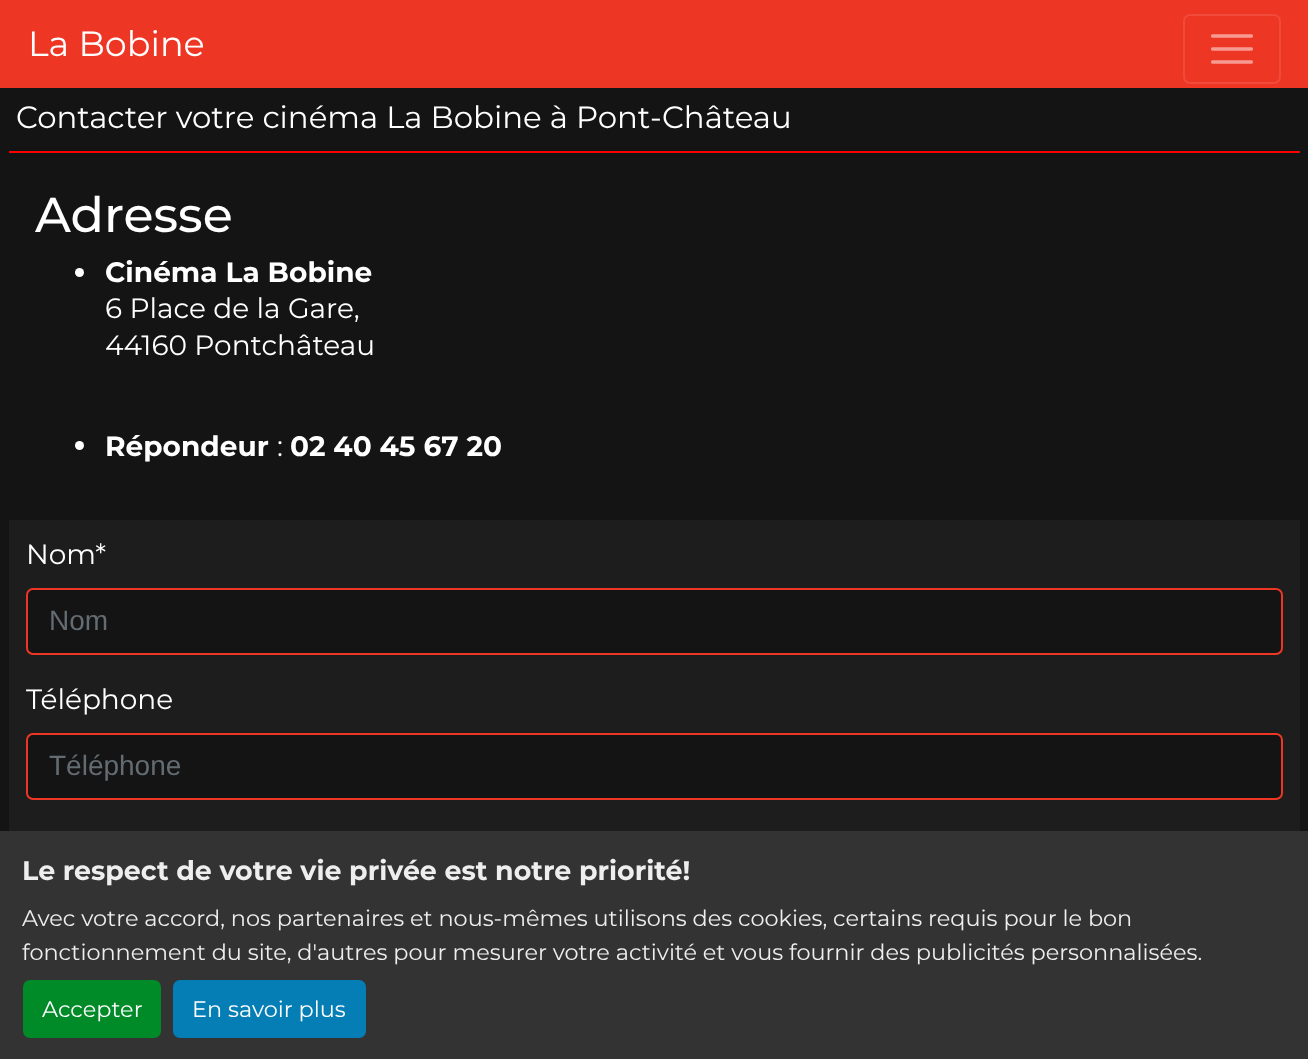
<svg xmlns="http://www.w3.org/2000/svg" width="1308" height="1059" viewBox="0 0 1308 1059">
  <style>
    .t1 { font: 35px Montserrat; fill: #fff; }
    .t2 { font: 30.8px Montserrat; fill: #fff; }
    .t3 { font: 500 49px Montserrat; fill: #fff; }
    .t4 { font: bold 28px Montserrat; fill: #fff; }
    .t5 { font: 28px Montserrat; fill: #fff; }
    .t6 { font: 28px Liberation Sans; fill: #636c72; }
    .t7 { font: bold 26.9px Montserrat; fill: #eee; }
    .t8 { font: 22.4px Montserrat; fill: #eee; }
    .t9 { font: 22.4px Montserrat; fill: #fff; }
  </style>
  <rect width="100%" height="100%" fill="#141414"/>
  <rect x="0" y="0" width="1308" height="88" fill="#ee3625"/>
  <text x="28" y="56" class="t1">La Bobine</text>
  <rect x="1184" y="15" width="96" height="68" rx="6" fill="none" stroke="#f04a3b" stroke-width="2"/>
  <path d="M1212.5 36H1251.5M1212.5 49H1251.5M1212.5 62H1251.5" fill="none" stroke="#f79b92" stroke-width="3.3" stroke-linecap="round"/>
  <rect x="9" y="151" width="1291" height="2" fill="#f00"/>
  <text x="16" y="128" class="t2">Contacter votre cinéma La Bobine à Pont-Château</text>
  <text x="35" y="232" class="t3">Adresse</text>
  <circle cx="79.5" cy="272.5" r="4.5" fill="#fff"/>
  <text x="105" y="282" class="t4">Cinéma La Bobine</text>
  <text x="105" y="318" class="t5">6 Place de la Gare,</text>
  <text x="105" y="355" class="t5">44160 Pontchâteau</text>
  <circle cx="79.5" cy="445.5" r="4.5" fill="#fff"/>
  <text x="105" y="456" class="t4">Répondeur</text>
  <text x="277" y="456" class="t5">:</text>
  <text x="290" y="456" class="t4">02 40 45 67 20</text>
  <rect x="9" y="520" width="1291" height="311" fill="#1d1d1d"/>
  <text x="26" y="564" class="t5">Nom*</text>
  <rect x="27" y="589" width="1255" height="65" rx="6" fill="#141414" stroke="#ee3625" stroke-width="2"/>
  <text x="49" y="630" class="t6">Nom</text>
  <text x="26" y="709" class="t5">Téléphone</text>
  <rect x="27" y="734" width="1255" height="65" rx="6" fill="#141414" stroke="#ee3625" stroke-width="2"/>
  <text x="49" y="775" class="t6">Téléphone</text>
  <rect x="0" y="831" width="1308" height="228" fill="#333"/>
  <text x="22" y="880" class="t7">Le respect de votre vie privée est notre priorité!</text>
  <text x="22" y="926" class="t8">Avec votre accord, nos partenaires et nous-mêmes utilisons des cookies, certains requis pour le bon</text>
  <text x="22" y="960" class="t8">fonctionnement du site, d'autres pour mesurer votre activité et vous fournir des publicités personnalisées.</text>
  <rect x="23" y="980" width="138" height="58" rx="7" fill="#008a28"/>
  <text x="42" y="1017" class="t9">Accepter</text>
  <rect x="173" y="980" width="193" height="58" rx="7" fill="#057eb6"/>
  <text x="192" y="1017" class="t9">En savoir plus</text>
</svg>
